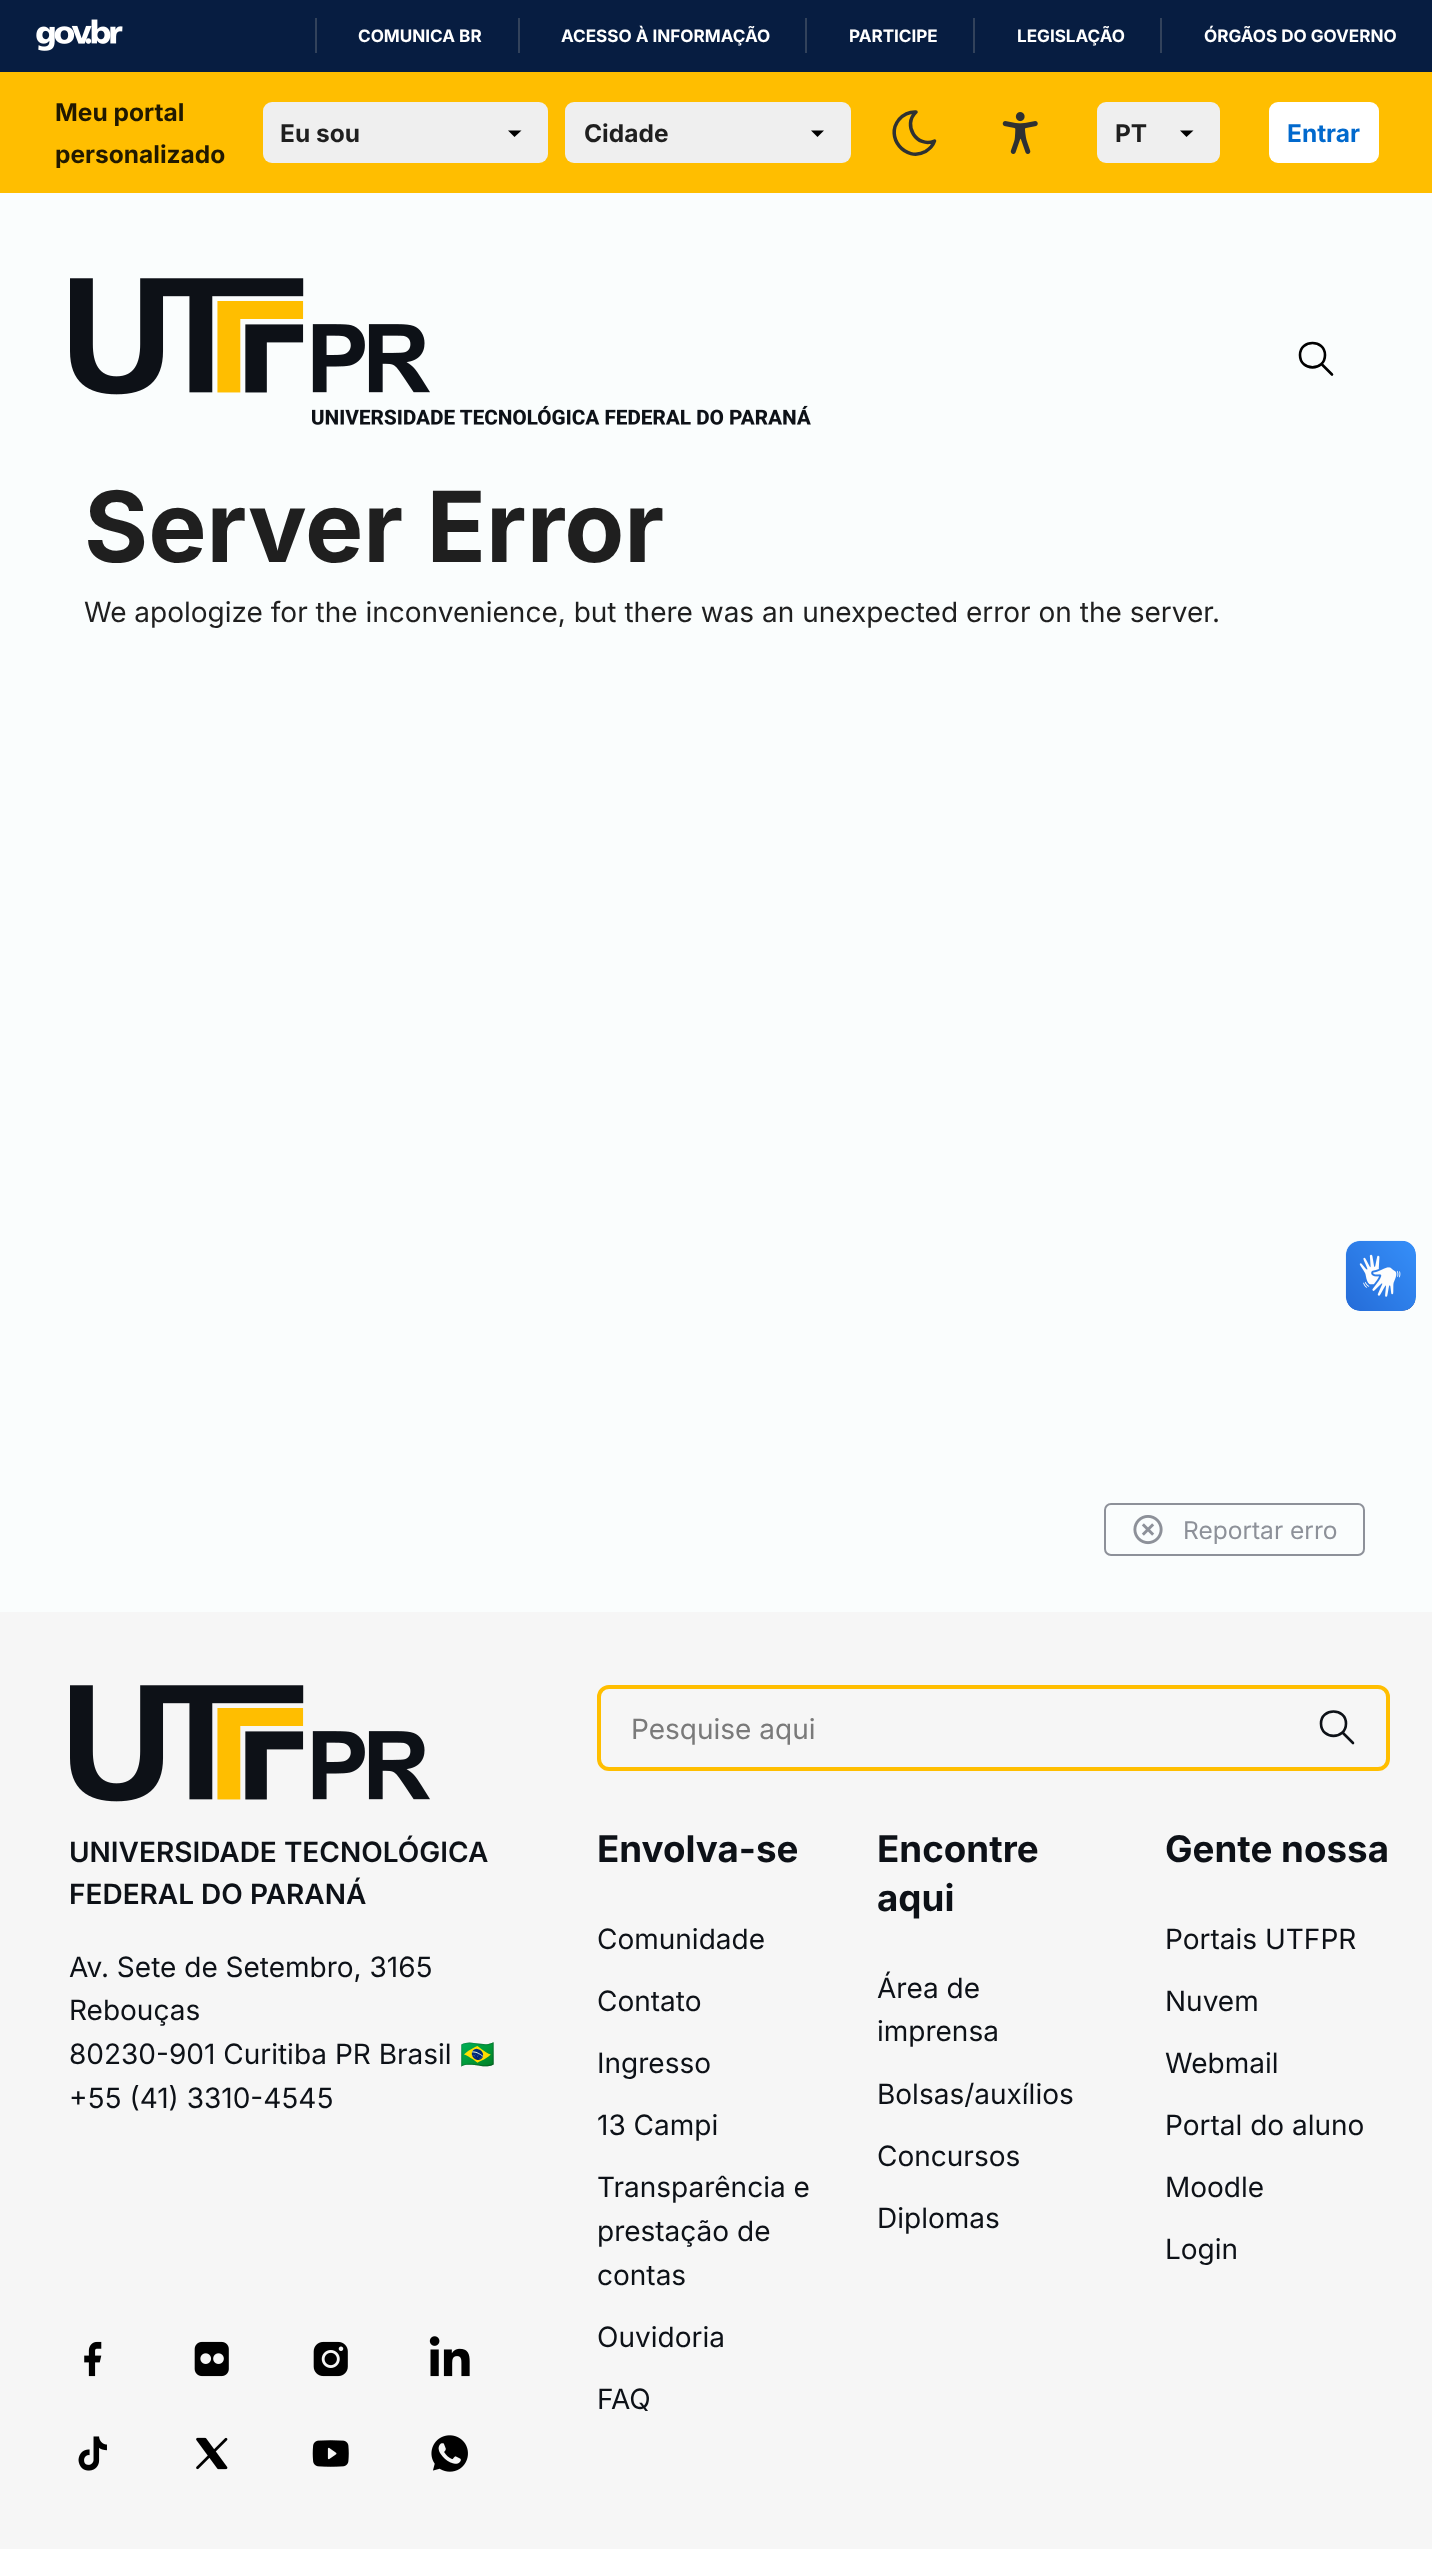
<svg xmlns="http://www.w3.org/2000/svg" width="1432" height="2549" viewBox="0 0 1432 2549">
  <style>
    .t1 { font: bold 17.1px Inter; fill: #fff; }
    .t2 { font: bold 24.5px Inter; fill: #211900; }
    .t3 { font: bold 24.5px Inter; fill: #1f1f1f; }
    .t4 { font: bold 24.5px Inter; fill: #0169cd; }
    .t5 { font: bold 98px Inter; fill: #1f1f1f; }
    .t6 { font: 28px Inter; fill: #1f1f1f; }
    .t7 { font: 24.5px Inter; fill: #8d9199; }
    .t8 { font: 600 28px Inter; fill: #0d1117; }
    .t9 { font: 28px Inter; fill: #0d1117; }
    .t10 { font: 28px Noto Color Emoji; fill: #0d1117; }
    .t11 { font: 28px Inter; fill: #7a7a7a; }
    .t12 { font: bold 36.75px Inter; fill: #0d1117; }
  </style>
  <defs>
    <clipPath id="clip1"><rect x="585" y="114" width="246" height="37"/></clipPath>
  </defs>
  <rect width="100%" height="100%" fill="#fafdfd"/>
  <rect x="0" y="0" width="1432" height="72" fill="#071d41"/>
  <image x="36" y="19" width="87" height="32" href="images/1.png"/>
  <rect x="315" y="18" width="2" height="35" fill="#32425b"/>
  <text x="358" y="42" class="t1">COMUNICA BR</text>
  <rect x="518" y="18" width="2" height="35" fill="#32425b"/>
  <text x="561" y="42" class="t1">ACESSO À INFORMAÇÃO</text>
  <rect x="805" y="18" width="2" height="35" fill="#32425b"/>
  <text x="849" y="42" class="t1">PARTICIPE</text>
  <rect x="973" y="18" width="2" height="35" fill="#32425b"/>
  <text x="1017" y="42" class="t1">LEGISLAÇÃO</text>
  <rect x="1160" y="18" width="2" height="35" fill="#32425b"/>
  <text x="1204" y="42" class="t1">ÓRGÃOS DO GOVERNO</text>
  <rect x="0" y="72" width="1432" height="121" fill="#ffbe00"/>
  <text x="55" y="121" class="t2">Meu portal</text>
  <text x="55" y="163" class="t2">personalizado</text>
  <rect x="263" y="102" width="285" height="61" rx="9" fill="#efefef"/>
  <path d="M508 130.5L514.5 137L521.5 130.5" fill="#000"/>
  <text x="280" y="142" class="t3">Eu sou</text>
  <rect x="565" y="102" width="286" height="61" rx="9" fill="#efefef"/>
  <path d="M811 130.5L817.5 137L824 130.5" fill="#000"/>
  <g clip-path="url(#clip1)">
    <text x="584" y="142" class="t3">Cidade</text>
  </g>
  <path d="M915 112H916C902 125 917 148.5 934.5 141C933 145.5 929.5 149 925.5 151.5C905.5 162.5 884.5 137 899 119.5C903 115 909 112 915 112Z" fill="none" stroke="#2e3132" stroke-width="3.5" stroke-linecap="round" stroke-linejoin="round"/>
  <image x="1002" y="112" width="36" height="42" href="images/2.png"/>
  <rect x="1097" y="102" width="123" height="61" rx="9" fill="#efefef"/>
  <path d="M1180 130.5L1186.5 137L1193.5 130.5" fill="#000"/>
  <text x="1115" y="142" class="t3">PT</text>
  <rect x="1269" y="102" width="110" height="61" rx="9" fill="#fff"/>
  <text x="1287" y="142" class="t4">Entrar</text>
  <image x="70" y="278" width="741" height="147" href="images/3.png"/>
  <path d="M1332 374.5L1321.5 364M1300 355C1300 371.5 1325 371.5 1325 355C1325 339 1300 339 1300 355Z" fill="none" stroke="#000" stroke-width="2.6" stroke-linecap="round" stroke-linejoin="round"/>
  <text x="84" y="562" class="t5">Server Error</text>
  <text x="84" y="622" class="t6">We apologize for the inconvenience, but there was an unexpected error on the server.</text>
  <rect x="1105" y="1504" width="259" height="51" rx="6" fill="none" stroke="#8d9199" stroke-width="2"/>
  <image x="1133" y="1515" width="30" height="30" href="images/4.png"/>
  <text x="1183" y="1539" class="t7">Reportar erro</text>
  <rect x="0" y="1612" width="1432" height="937" fill="#f6f6f6"/>
  <image x="70" y="1685" width="360" height="117" href="images/5.png"/>
  <text x="69" y="1862" class="t8">UNIVERSIDADE TECNOLÓGICA</text>
  <text x="69" y="1904" class="t8">FEDERAL DO PARANÁ</text>
  <text x="69" y="1977" class="t9">Av. Sete de Setembro, 3165</text>
  <text x="69" y="2020" class="t9">Rebouças</text>
  <text x="69" y="2064" class="t9">80230-901 Curitiba PR Brasil</text>
  <text x="460" y="2064" class="t10">🇧🇷</text>
  <text x="69" y="2108" class="t9">+55 (41) 3310-4545</text>
  <image x="84" y="2341" width="18" height="36" href="images/6.png"/>
  <image x="194" y="2341" width="35" height="36" href="images/7.png"/>
  <image x="313" y="2341" width="35" height="36" href="images/8.png"/>
  <image x="429" y="2336" width="41" height="41" href="images/9.png"/>
  <image x="78" y="2436" width="29" height="35" href="images/10.png"/>
  <image x="196" y="2437" width="32" height="33" href="images/11.png"/>
  <image x="312" y="2440" width="37" height="27" href="images/12.png"/>
  <image x="431" y="2435" width="37" height="37" href="images/13.png"/>
  <rect x="599" y="1687" width="789" height="82" rx="10" fill="none" stroke="#ffbe00" stroke-width="4"/>
  <text x="631" y="1739" class="t11">Pesquise aqui</text>
  <path d="M1353 1743L1342.5 1732.5M1321 1723.5C1321 1740 1346 1740 1346 1723.5C1346 1707.5 1321 1707.5 1321 1723.5Z" fill="none" stroke="#0d1117" stroke-width="2.6" stroke-linecap="round" stroke-linejoin="round"/>
  <text x="597" y="1862" class="t12">Envolva-se</text>
  <text x="597" y="1949" class="t9">Comunidade</text>
  <text x="597" y="2011" class="t9">Contato</text>
  <text x="597" y="2073" class="t9">Ingresso</text>
  <text x="597" y="2135" class="t9">13 Campi</text>
  <text x="597" y="2197" class="t9">Transparência e</text>
  <text x="597" y="2241" class="t9">prestação de</text>
  <text x="597" y="2285" class="t9">contas</text>
  <text x="597" y="2347" class="t9">Ouvidoria</text>
  <text x="597" y="2409" class="t9">FAQ</text>
  <text x="877" y="1862" class="t12">Encontre</text>
  <text x="877" y="1911" class="t12">aqui</text>
  <text x="877" y="1998" class="t9">Área de</text>
  <text x="877" y="2041" class="t9">imprensa</text>
  <text x="877" y="2104" class="t9">Bolsas/auxílios</text>
  <text x="877" y="2166" class="t9">Concursos</text>
  <text x="877" y="2228" class="t9">Diplomas</text>
  <text x="1165" y="1862" class="t12">Gente nossa</text>
  <text x="1165" y="1949" class="t9">Portais UTFPR</text>
  <text x="1165" y="2011" class="t9">Nuvem</text>
  <text x="1165" y="2073" class="t9">Webmail</text>
  <text x="1165" y="2135" class="t9">Portal do aluno</text>
  <text x="1165" y="2197" class="t9">Moodle</text>
  <text x="1165" y="2259" class="t9">Login</text>
  <image x="1345" y="1240" width="71" height="71" href="images/14.png"/>
  <image x="1346" y="1241" width="70" height="70" href="images/15.png"/>
</svg>
